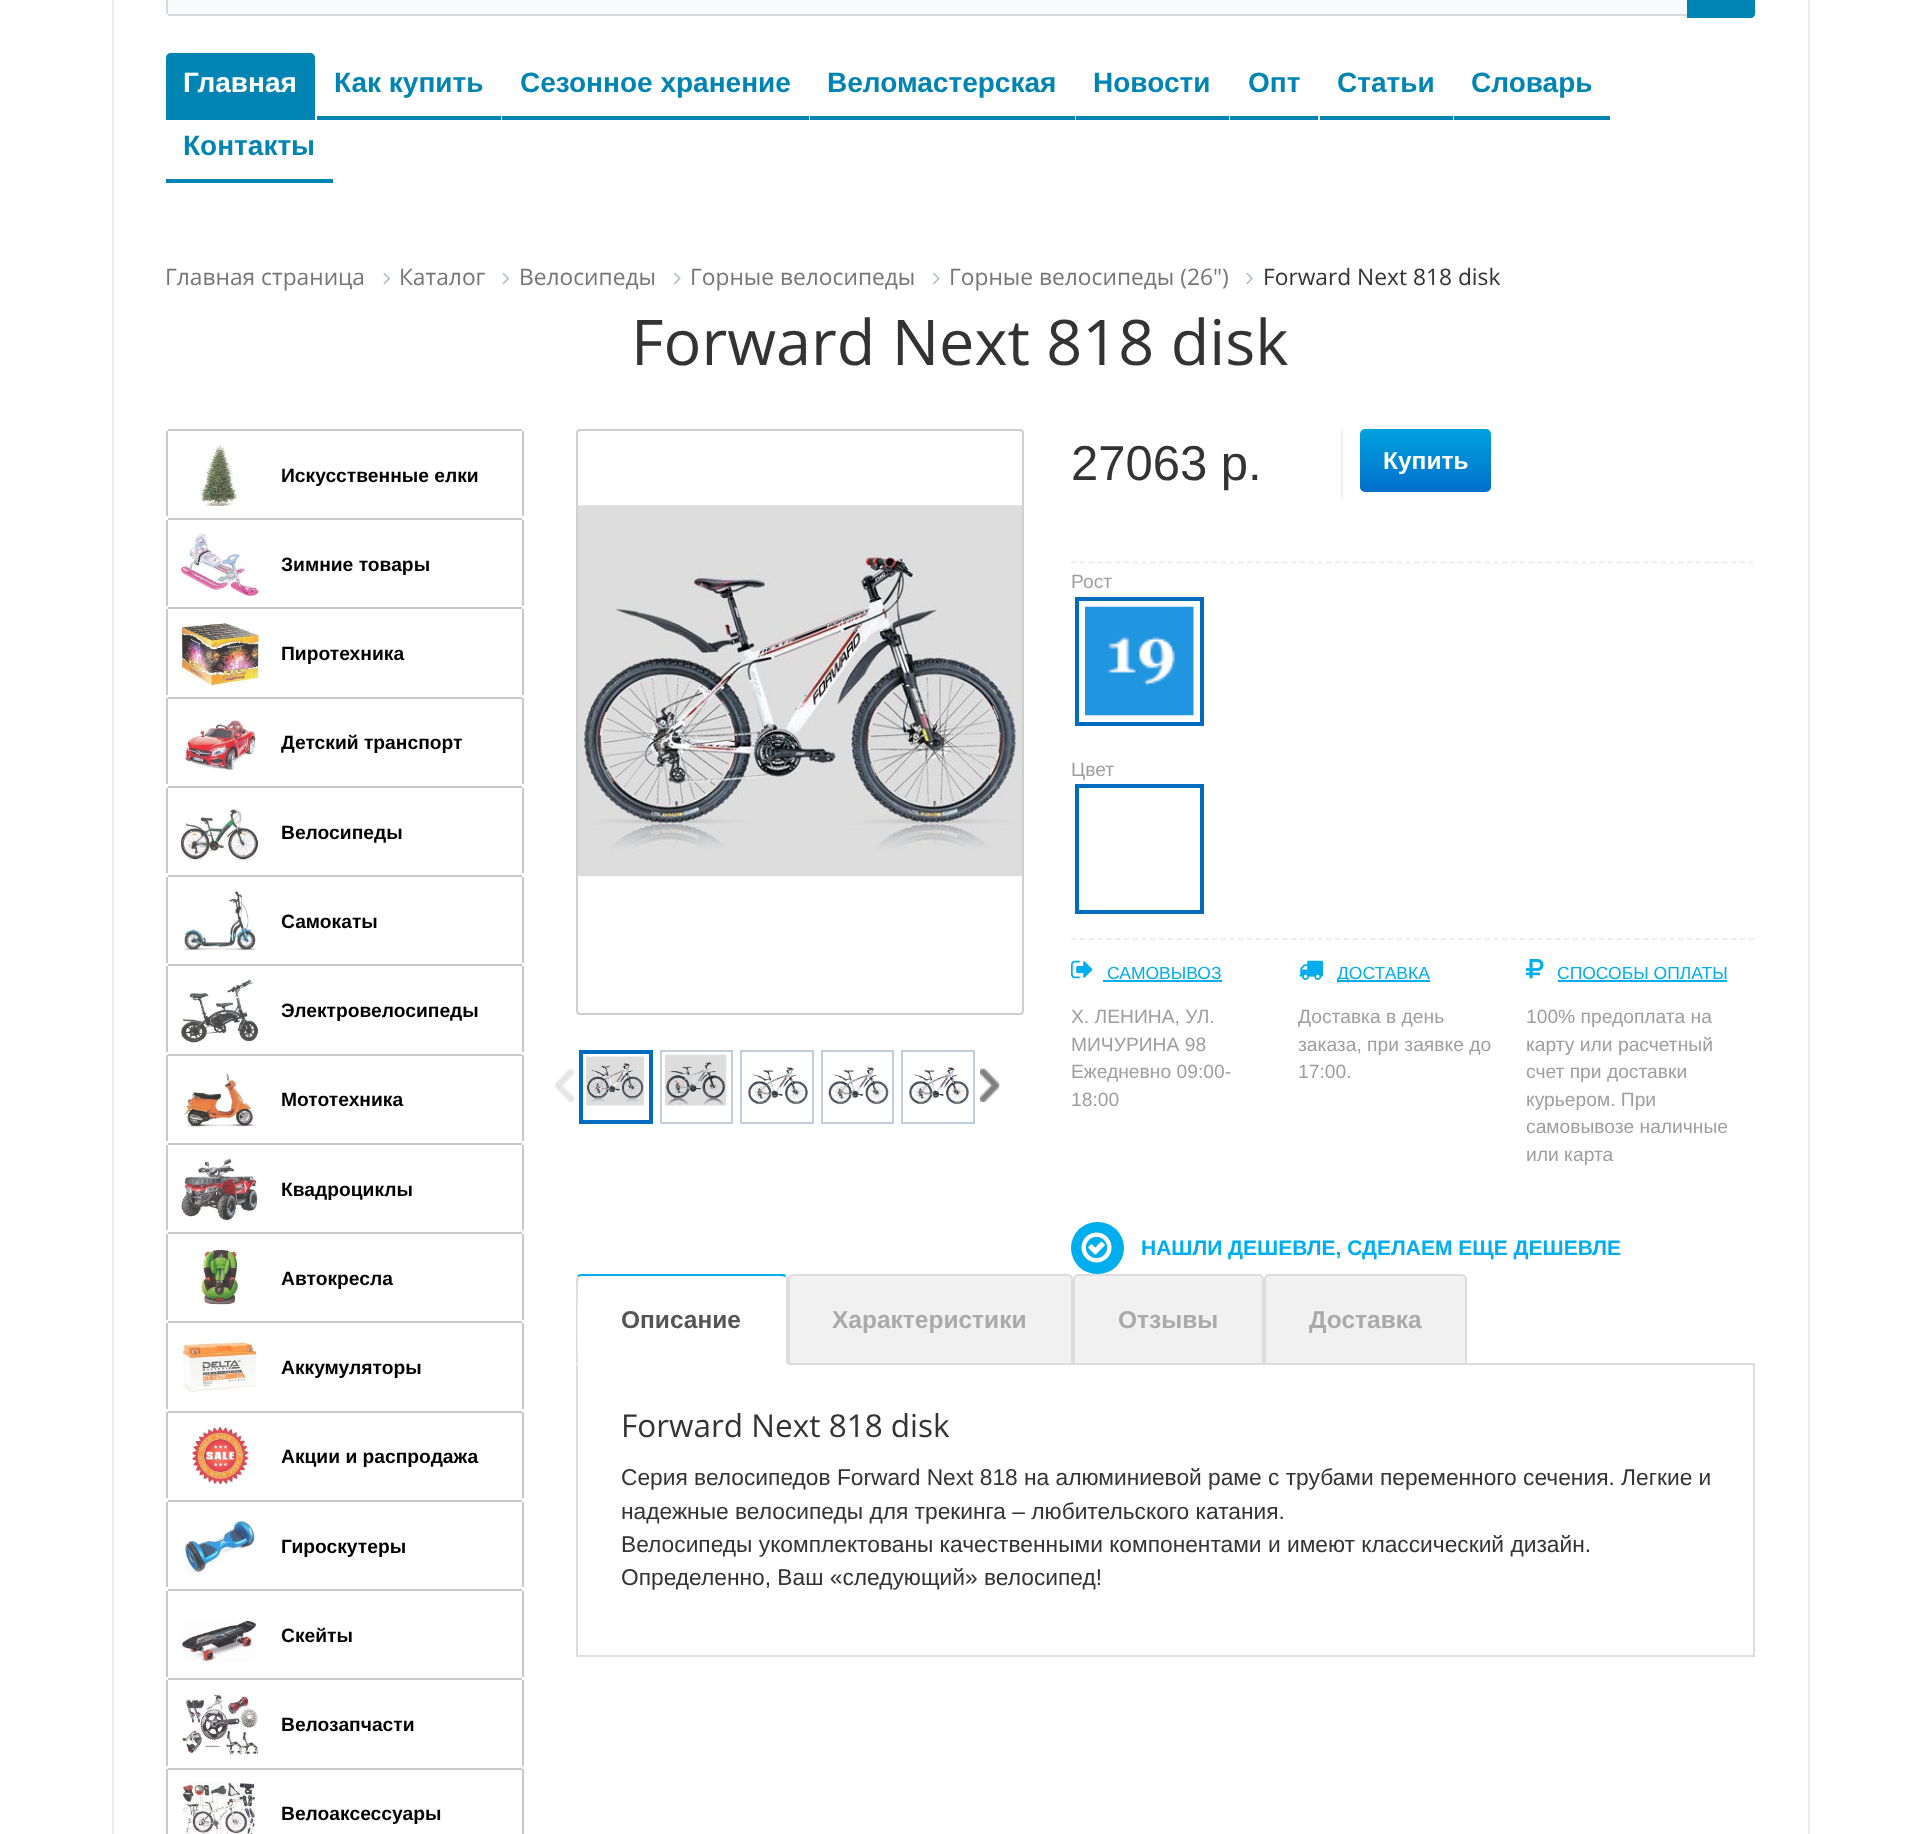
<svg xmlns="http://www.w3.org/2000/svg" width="1919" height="1834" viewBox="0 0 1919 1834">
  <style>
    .t1 { font: bold 28px Liberation Sans; fill: #fff; }
    .t2 { font: bold 28px Liberation Sans; fill: #0084b4; }
    .t3 { font: 22.75px Open Sans; fill: #757575; }
    .t4 { font: 22.75px Open Sans; fill: #333; }
    .t5 { font: 63px Open Sans; fill: #333; }
    .t6 { font: bold 19.25px Liberation Sans; fill: #000; }
    .t7 { font: 49px Liberation Sans; fill: #333; }
    .t8 { font: bold 24.5px Liberation Sans; fill: #fff; }
    .t9 { font: 19.25px Liberation Sans; fill: #9e9e9e; }
    .t10 { font: 17.5px Liberation Sans; fill: #00adef; }
    .t11 { font: bold 21px Liberation Sans; fill: #00adef; }
    .t12 { font: bold 24.5px Liberation Sans; fill: #555; }
    .t13 { font: bold 24.5px Liberation Sans; fill: #aaa; }
    .t14 { font: 31.5px Open Sans; fill: #333; }
    .t15 { font: 22.75px Liberation Sans; fill: #333; }
  </style>
  <defs>
    <linearGradient id="g1" gradientUnits="userSpaceOnUse" x1="1425" y1="429" x2="1425" y2="492"><stop offset="0" stop-color="#00a2df"/><stop offset="1" stop-color="#006fcb"/></linearGradient>
  </defs>
  <rect width="100%" height="100%" fill="#fff"/>
  <rect x="1808" y="0" width="2" height="1834" fill="#eaebec"/>
  <rect x="112" y="0" width="2" height="1834" fill="#eaebec"/>
  <path d="M170-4H1687V16H170C168 16 166 14 166 12V0C166-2 168-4 170-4Z" fill="#f8fafc"/>
  <rect x="168" y="14" width="1519" height="2" fill="#d5dadc"/>
  <rect x="166" y="0" width="2" height="14" fill="#d5dadc"/>
  <path d="M1687-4H1751C1753-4 1755-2 1755 0V14C1755 16 1753 18 1751 18H1687Z" fill="#0084b4"/>
  <path d="M171 53H310C313 53 315 55 315 58V116H166V58C166 55 168 53 171 53Z" fill="#0084b4"/>
  <text x="183" y="92" class="t1">Главная</text>
  <rect x="166" y="116" width="149" height="4" fill="#0084b4"/>
  <text x="334" y="92" class="t2">Как купить</text>
  <rect x="317" y="116" width="184" height="4" fill="#0084b4"/>
  <text x="520" y="92" class="t2">Сезонное хранение</text>
  <rect x="502" y="116" width="307" height="4" fill="#0084b4"/>
  <text x="827" y="92" class="t2">Веломастерская</text>
  <rect x="810" y="116" width="265" height="4" fill="#0084b4"/>
  <text x="1093" y="92" class="t2">Новости</text>
  <rect x="1076" y="116" width="153" height="4" fill="#0084b4"/>
  <text x="1248" y="92" class="t2">Опт</text>
  <rect x="1230" y="116" width="88" height="4" fill="#0084b4"/>
  <text x="1337" y="92" class="t2">Статьи</text>
  <rect x="1320" y="116" width="133" height="4" fill="#0084b4"/>
  <text x="1471" y="92" class="t2">Словарь</text>
  <rect x="1454" y="116" width="156" height="4" fill="#0084b4"/>
  <text x="183" y="155" class="t2">Контакты</text>
  <rect x="166" y="179" width="167" height="4" fill="#0084b4"/>
  <text x="165" y="285" class="t3">Главная страница</text>
  <image x="383" y="272" width="8" height="13" href="images/1.png"/>
  <text x="399" y="285" class="t3">Каталог</text>
  <image x="502" y="272" width="8" height="13" href="images/1.png"/>
  <text x="519" y="285" class="t3">Велосипеды</text>
  <image x="674" y="272" width="7" height="13" href="images/2.png"/>
  <text x="690" y="285" class="t3">Горные велосипеды</text>
  <image x="933" y="272" width="7" height="13" href="images/2.png"/>
  <text x="949" y="285" class="t3">Горные велосипеды (26")</text>
  <image x="1246" y="272" width="7" height="13" href="images/3.png"/>
  <text x="1263" y="285" class="t4">Forward Next 818 disk</text>
  <text x="631" y="365" class="t5">Forward Next 818 disk</text>
  <rect x="168" y="429" width="354" height="2" fill="#c9c9c9"/>
  <rect x="522" y="431" width="2" height="85" fill="#c9c9c9"/>
  <rect x="166" y="431" width="2" height="85" fill="#c9c9c9"/>
  <image x="200" y="444" width="38" height="62" href="images/4.png"/>
  <text x="281" y="482" class="t6">Искусственные елки</text>
  <rect x="168" y="518" width="354" height="2" fill="#c9c9c9"/>
  <rect x="522" y="520" width="2" height="86" fill="#c9c9c9"/>
  <rect x="166" y="520" width="2" height="86" fill="#c9c9c9"/>
  <image x="180" y="533" width="79" height="64" href="images/5.png"/>
  <text x="281" y="571" class="t6">Зимние товары</text>
  <rect x="168" y="607" width="354" height="2" fill="#c9c9c9"/>
  <rect x="522" y="609" width="2" height="86" fill="#c9c9c9"/>
  <rect x="166" y="609" width="2" height="86" fill="#c9c9c9"/>
  <image x="180" y="622" width="79" height="64" href="images/6.png"/>
  <text x="281" y="660" class="t6">Пиротехника</text>
  <rect x="168" y="697" width="354" height="2" fill="#c9c9c9"/>
  <rect x="522" y="698" width="2" height="86" fill="#c9c9c9"/>
  <rect x="166" y="698" width="2" height="86" fill="#c9c9c9"/>
  <image x="185" y="720" width="71" height="50" href="images/7.png"/>
  <text x="281" y="749" class="t6">Детский транспорт</text>
  <rect x="168" y="786" width="354" height="2" fill="#c9c9c9"/>
  <rect x="522" y="788" width="2" height="85" fill="#c9c9c9"/>
  <rect x="166" y="788" width="2" height="85" fill="#c9c9c9"/>
  <image x="180" y="809" width="79" height="51" href="images/8.png"/>
  <text x="281" y="839" class="t6">Велосипеды</text>
  <rect x="168" y="875" width="354" height="2" fill="#c9c9c9"/>
  <rect x="522" y="877" width="2" height="86" fill="#c9c9c9"/>
  <rect x="166" y="877" width="2" height="86" fill="#c9c9c9"/>
  <image x="182" y="890" width="76" height="61" href="images/9.png"/>
  <text x="281" y="928" class="t6">Самокаты</text>
  <rect x="168" y="964" width="354" height="2" fill="#c9c9c9"/>
  <rect x="522" y="966" width="2" height="86" fill="#c9c9c9"/>
  <rect x="166" y="966" width="2" height="86" fill="#c9c9c9"/>
  <image x="180" y="979" width="79" height="64" href="images/10.png"/>
  <text x="281" y="1017" class="t6">Электровелосипеды</text>
  <rect x="168" y="1054" width="354" height="2" fill="#c9c9c9"/>
  <rect x="522" y="1055" width="2" height="86" fill="#c9c9c9"/>
  <rect x="166" y="1055" width="2" height="86" fill="#c9c9c9"/>
  <image x="184" y="1073" width="72" height="54" href="images/11.png"/>
  <text x="281" y="1106" class="t6">Мототехника</text>
  <rect x="168" y="1143" width="354" height="2" fill="#c9c9c9"/>
  <rect x="522" y="1145" width="2" height="85" fill="#c9c9c9"/>
  <rect x="166" y="1145" width="2" height="85" fill="#c9c9c9"/>
  <image x="181" y="1158" width="77" height="63" href="images/12.png"/>
  <text x="281" y="1196" class="t6">Квадроциклы</text>
  <rect x="168" y="1232" width="354" height="2" fill="#c9c9c9"/>
  <rect x="522" y="1234" width="2" height="86" fill="#c9c9c9"/>
  <rect x="166" y="1234" width="2" height="86" fill="#c9c9c9"/>
  <image x="200" y="1250" width="39" height="55" href="images/13.png"/>
  <text x="281" y="1285" class="t6">Автокресла</text>
  <rect x="168" y="1321" width="354" height="2" fill="#c9c9c9"/>
  <rect x="522" y="1323" width="2" height="86" fill="#c9c9c9"/>
  <rect x="166" y="1323" width="2" height="86" fill="#c9c9c9"/>
  <image x="180" y="1341" width="77" height="51" href="images/14.png"/>
  <text x="281" y="1374" class="t6">Аккумуляторы</text>
  <rect x="168" y="1411" width="354" height="2" fill="#c9c9c9"/>
  <rect x="522" y="1412" width="2" height="86" fill="#c9c9c9"/>
  <rect x="166" y="1412" width="2" height="86" fill="#c9c9c9"/>
  <image x="191" y="1426" width="59" height="59" href="images/15.png"/>
  <text x="281" y="1463" class="t6">Акции и распродажа</text>
  <rect x="168" y="1500" width="354" height="2" fill="#c9c9c9"/>
  <rect x="522" y="1502" width="2" height="85" fill="#c9c9c9"/>
  <rect x="166" y="1502" width="2" height="85" fill="#c9c9c9"/>
  <image x="185" y="1520" width="71" height="54" href="images/16.png"/>
  <text x="281" y="1553" class="t6">Гироскутеры</text>
  <rect x="168" y="1589" width="354" height="2" fill="#c9c9c9"/>
  <rect x="522" y="1591" width="2" height="86" fill="#c9c9c9"/>
  <rect x="166" y="1591" width="2" height="86" fill="#c9c9c9"/>
  <image x="181" y="1620" width="75" height="42" href="images/17.png"/>
  <text x="281" y="1642" class="t6">Скейты</text>
  <rect x="168" y="1678" width="354" height="2" fill="#c9c9c9"/>
  <rect x="522" y="1680" width="2" height="86" fill="#c9c9c9"/>
  <rect x="166" y="1680" width="2" height="86" fill="#c9c9c9"/>
  <image x="182" y="1694" width="77" height="61" href="images/18.png"/>
  <text x="281" y="1731" class="t6">Велозапчасти</text>
  <rect x="168" y="1768" width="354" height="2" fill="#c9c9c9"/>
  <rect x="522" y="1769" width="2" height="65" fill="#c9c9c9"/>
  <rect x="166" y="1769" width="2" height="65" fill="#c9c9c9"/>
  <image x="180" y="1782" width="76" height="52" href="images/19.png"/>
  <text x="281" y="1820" class="t6">Велоаксессуары</text>
  <rect x="577" y="430" width="446" height="584" rx="3" fill="none" stroke="#cfcfcf" stroke-width="2"/>
  <image x="577" y="505" width="445" height="372" href="images/20.png"/>
  <image x="555" y="1069" width="19" height="33" href="images/21.png"/>
  <rect x="581" y="1052" width="70" height="70" fill="none" stroke="#006cc0" stroke-width="4"/>
  <image x="586" y="1056" width="58" height="50" href="images/22.png"/>
  <rect x="661" y="1051" width="71" height="72" fill="none" stroke="#c0cfda" stroke-width="2"/>
  <image x="665" y="1054" width="62" height="52" href="images/23.png"/>
  <rect x="741" y="1051" width="72" height="72" fill="none" stroke="#c0cfda" stroke-width="2"/>
  <image x="748" y="1067" width="60" height="38" href="images/24.png"/>
  <rect x="822" y="1051" width="71" height="72" fill="none" stroke="#c0cfda" stroke-width="2"/>
  <image x="828" y="1067" width="61" height="38" href="images/25.png"/>
  <rect x="902" y="1051" width="72" height="72" fill="none" stroke="#c0cfda" stroke-width="2"/>
  <image x="909" y="1067" width="60" height="38" href="images/24.png"/>
  <image x="980" y="1068" width="20" height="34" href="images/26.png"/>
  <rect x="1341" y="429" width="2" height="70" fill="#eee"/>
  <text x="1071" y="480" class="t7">27063 р.</text>
  <rect x="1360" y="429" width="131" height="63" rx="5" fill="url(#g1)"/>
  <text x="1383" y="469" class="t8">Купить</text>
  <path d="M1071 562.5H1753.5" fill="none" stroke="#eee" stroke-width="1.8" stroke-dasharray="5.25 3.55"/>
  <path d="M1071 939H1753.5" fill="none" stroke="#eee" stroke-width="1.8" stroke-dasharray="5.25 3.55"/>
  <text x="1071" y="588" class="t9">Рост</text>
  <rect x="1077" y="599" width="125" height="125" fill="none" stroke="#006cc0" stroke-width="4"/>
  <image x="1085" y="606" width="109" height="110" href="images/27.png"/>
  <text x="1071" y="776" class="t9">Цвет</text>
  <rect x="1077" y="786" width="125" height="126" fill="none" stroke="#006cc0" stroke-width="4"/>
  <image x="1071" y="960" width="22" height="19" href="images/28.png"/>
  <text x="1107" y="979" class="t10">САМОВЫВОЗ</text>
  <rect x="1103" y="980" width="119" height="2" fill="#00adef"/>
  <text x="1071" y="1023" class="t9">Х. ЛЕНИНА, УЛ.</text>
  <text x="1071" y="1051" class="t9">МИЧУРИНА 98</text>
  <text x="1071" y="1078" class="t9">Ежедневно 09:00-</text>
  <text x="1071" y="1106" class="t9">18:00</text>
  <image x="1299" y="960" width="24" height="20" href="images/29.png"/>
  <rect x="1337" y="980" width="93" height="2" fill="#00adef"/>
  <text x="1337" y="979" class="t10">ДОСТАВКА</text>
  <text x="1298" y="1023" class="t9">Доставка в день</text>
  <text x="1298" y="1051" class="t9">заказа, при заявке до</text>
  <text x="1298" y="1078" class="t9">17:00.</text>
  <image x="1526" y="959" width="18" height="20" href="images/30.png"/>
  <text x="1557" y="979" class="t10">СПОСОБЫ ОПЛАТЫ</text>
  <rect x="1558" y="980" width="169" height="2" fill="#00adef"/>
  <text x="1526" y="1023" class="t9">100% предоплата на</text>
  <text x="1526" y="1051" class="t9">карту или расчетный</text>
  <text x="1526" y="1078" class="t9">счет при доставки</text>
  <text x="1526" y="1106" class="t9">курьером. При</text>
  <text x="1526" y="1133" class="t9">самовывозе наличные</text>
  <text x="1526" y="1161" class="t9">или карта</text>
  <rect x="1071" y="1222" width="53" height="52" rx="26" fill="#00adef"/>
  <image x="1081" y="1232" width="31" height="31" href="images/31.png"/>
  <text x="1141" y="1255" class="t11">НАШЛИ ДЕШЕВЛЕ, СДЕЛАЕМ ЕЩЕ ДЕШЕВЛЕ</text>
  <rect x="577" y="1364" width="1177" height="292" fill="none" stroke="#ddd" stroke-width="2"/>
  <path d="M581 1274H783C786 1274 788 1276 788 1279V1365H576V1279C576 1276 578 1274 581 1274Z" fill="#fff"/>
  <path d="M581 1274C579 1274 578 1275 577 1276L579 1277L581 1276H782L785 1277L786 1275C785 1274 784 1274 782 1274Z" fill="#00adef"/>
  <path d="M788 1277V1365L786 1363V1279L785 1277L786 1275Z" fill="#ddd"/>
  <path d="M788 1365L786 1363H578L576 1365Z" fill="#fff"/>
  <path d="M577 1276L576 1278V1365L578 1363C578 1354 577 1279 579 1277Z" fill="#ddd"/>
  <text x="621" y="1328" class="t12">Описание</text>
  <path d="M793 1275H1068C1070 1275 1072 1277 1072 1279V1364H789V1279C789 1277 791 1275 793 1275Z" fill="#f1f1f1" stroke="#ddd" stroke-width="2"/>
  <text x="832" y="1328" class="t13">Характеристики</text>
  <path d="M1078 1275H1259C1261 1275 1263 1277 1263 1279V1364H1074V1279C1074 1277 1076 1275 1078 1275Z" fill="#f1f1f1" stroke="#ddd" stroke-width="2"/>
  <text x="1118" y="1328" class="t13">Отзывы</text>
  <path d="M1269 1275H1462C1464 1275 1466 1277 1466 1279V1364H1265V1279C1265 1277 1267 1275 1269 1275Z" fill="#f1f1f1" stroke="#ddd" stroke-width="2"/>
  <text x="1309" y="1328" class="t13">Доставка</text>
  <text x="621" y="1437" class="t14">Forward Next 818 disk</text>
  <text x="621" y="1485" class="t15">Серия велосипедов Forward Next 818 на алюминиевой раме с трубами переменного сечения. Легкие и</text>
  <text x="621" y="1519" class="t15">надежные велосипеды для трекинга – любительского катания.</text>
  <text x="621" y="1552" class="t15">Велосипеды укомплектованы качественными компонентами и имеют классический дизайн.</text>
  <text x="621" y="1585" class="t15">Определенно, Ваш «следующий» велосипед!</text>
</svg>
